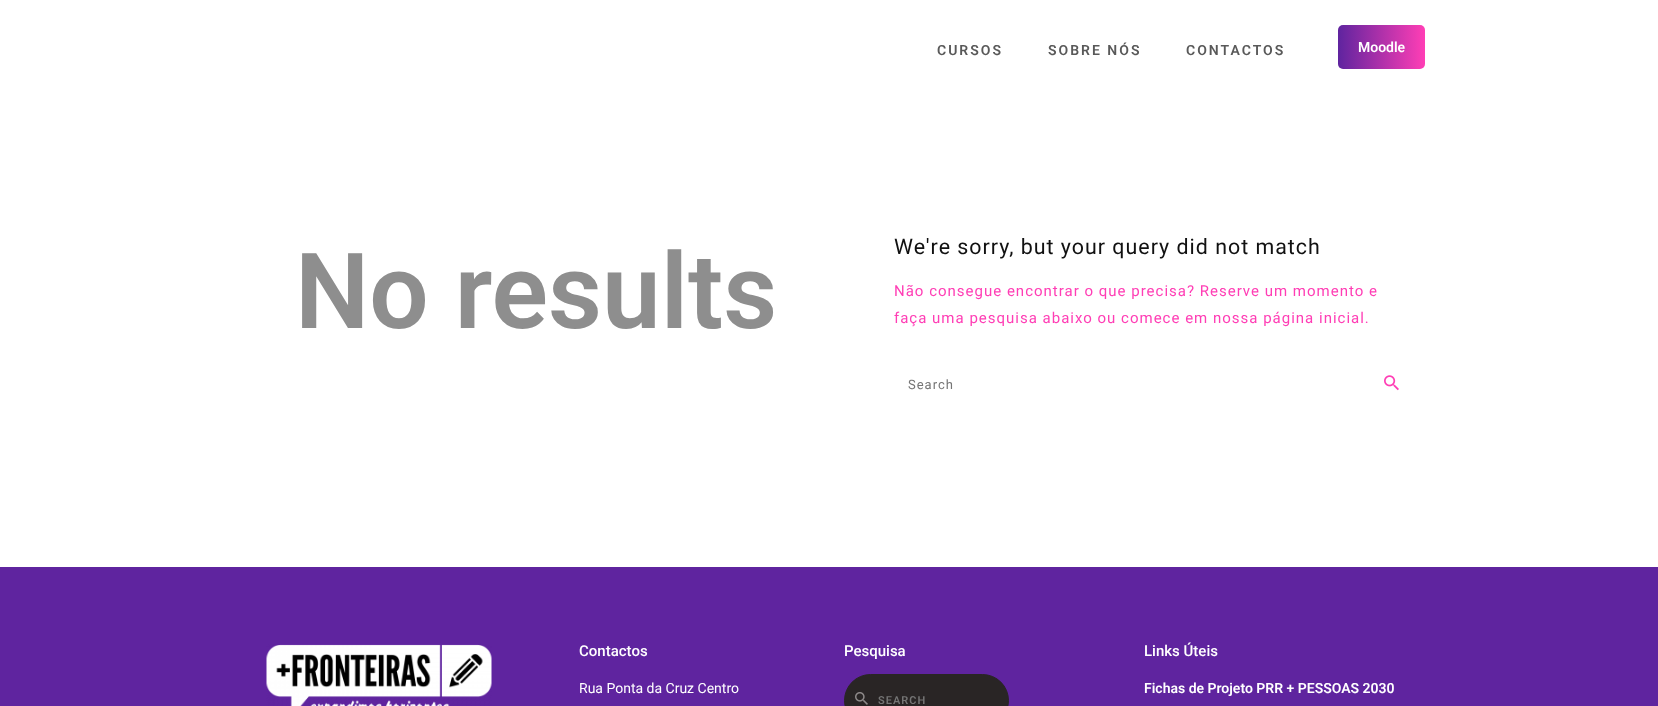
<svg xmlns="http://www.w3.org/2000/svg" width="1658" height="706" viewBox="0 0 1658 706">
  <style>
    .t1 { font: 600 14px Roboto; letter-spacing: 2px; fill: #595959; }
    .t2 { font: 600 14px Roboto; fill: #fff; }
    .t3 { font: 600 105px Roboto; fill: #8e8e8e; }
    .t4 { font: 21.4px Roboto; letter-spacing: 1px; fill: #111; }
    .t5 { font: 15px Roboto; letter-spacing: 1px; fill: #ff3eb5; }
    .t6 { font: 13px Roboto; letter-spacing: 1px; fill: #757575; }
    .t7 { font: 500 15px Roboto; fill: #fff; }
    .t8 { font: 14px Roboto; fill: #fff; }
    .t9 { font: 600 11px Roboto; letter-spacing: 1px; fill: #757575; }
  </style>
  <defs>
    <linearGradient id="g1" gradientUnits="userSpaceOnUse" x1="1338" y1="47" x2="1512" y2="47"><stop offset="0" stop-color="#5f249f"/><stop offset="0.5" stop-color="#ff3eb5"/><stop offset="1" stop-color="#5f249f"/></linearGradient>
  </defs>
  <rect width="100%" height="100%" fill="#fff"/>
  <text x="937" y="55" class="t1">CURSOS</text>
  <text x="1048" y="55" class="t1">SOBRE NÓS</text>
  <text x="1186" y="55" class="t1">CONTACTOS</text>
  <rect x="1338" y="25" width="87" height="44" rx="5" fill="url(#g1)"/>
  <text x="1358" y="52" class="t2">Moodle</text>
  <text x="295" y="328" class="t3">No results</text>
  <text x="894" y="254" class="t4">We're sorry, but your query did not match</text>
  <text x="894" y="296" class="t5">Não consegue encontrar o que precisa? Reserve um momento e</text>
  <text x="894" y="323" class="t5">faça uma pesquisa abaixo ou comece em nossa página inicial.</text>
  <text x="908" y="389" class="t6">Search</text>
  <image x="1384" y="375" width="15" height="16" href="images/1.png"/>
  <rect x="0" y="567" width="1658" height="139" fill="#5f249f"/>
  <image x="266" y="644" width="226" height="62" href="images/2.png"/>
  <text x="579" y="656" class="t7">Contactos</text>
  <text x="579" y="693" class="t8">Rua Ponta da Cruz Centro</text>
  <text x="844" y="656" class="t7">Pesquisa</text>
  <rect x="844.5" y="674.5" width="164" height="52" rx="26" fill="#292525" stroke="#292525"/>
  <image x="855" y="692" width="13" height="13" href="images/3.png"/>
  <text x="878" y="704" class="t9">SEARCH</text>
  <text x="1144" y="656" class="t7">Links Úteis</text>
  <text x="1144" y="693" class="t2">Fichas de Projeto PRR + PESSOAS 2030</text>
</svg>
